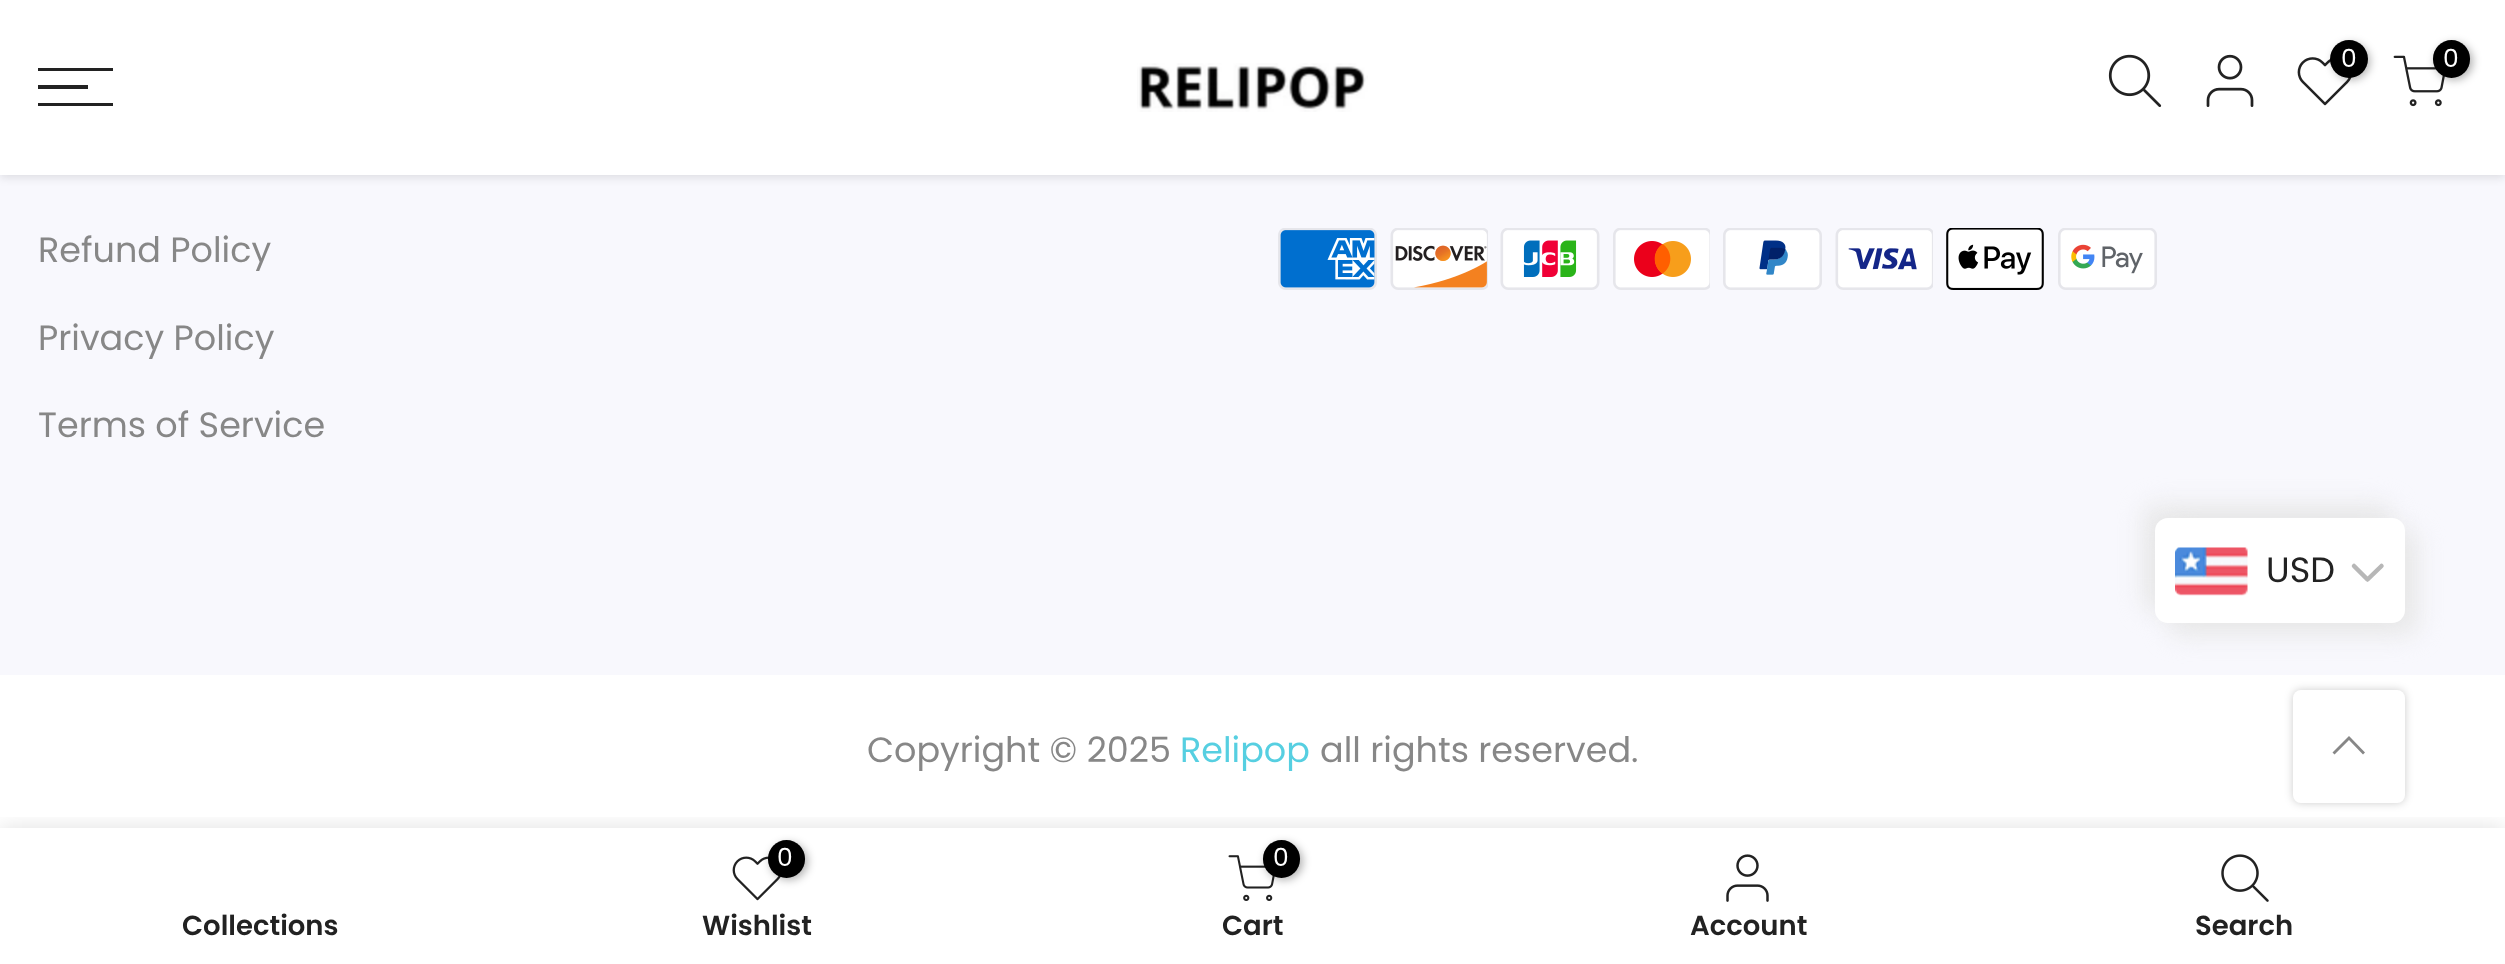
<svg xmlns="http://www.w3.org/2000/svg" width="2505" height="964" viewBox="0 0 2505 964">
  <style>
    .t1 { font: 25px Poppins; fill: #fff; }
    .t2 { font: 35px Poppins; fill: #878787; }
    .t3 { font: 35px Poppins; fill: #56cfe1; }
    .t4 { font: 35px Poppins; fill: #222; }
    .t5 { font: 600 27.5px Poppins; fill: #222; }
  </style>
  <defs>
    <clipPath id="clip1"><rect x="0" y="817" width="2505" height="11"/></clipPath>
  </defs>
  <rect width="100%" height="100%" fill="#fff"/>
  <rect x="0" y="175" width="2505" height="500" fill="#f8f8fd"/>
  <rect x="0" y="3" width="2505" height="175" fill="#0000001a" filter="blur(4px)"/>
  <rect x="0" y="0" width="2505" height="175" fill="#fff"/>
  <image x="2108" y="54" width="54" height="53" href="images/1.png"/>
  <image x="2206" y="54" width="48" height="53" href="images/2.png"/>
  <image x="2297" y="57" width="55" height="49" href="images/3.png"/>
  <rect x="2333" y="43" width="37" height="37" rx="18.5" fill="#0000004d" filter="blur(4px)"/>
  <circle cx="2349" cy="59" r="19" fill="#000"/>
  <text x="2341" y="67" class="t1">0</text>
  <image x="2393" y="55" width="52" height="52" href="images/4.png"/>
  <rect x="2435" y="43" width="38" height="37" rx="18.5" fill="#0000004d" filter="blur(4px)"/>
  <rect x="2433" y="40" width="37" height="38" rx="18.5" fill="#000"/>
  <text x="2443" y="67" class="t1">0</text>
  <rect x="38" y="68" width="75" height="3" fill="#222"/>
  <rect x="38" y="85" width="50" height="4" fill="#222"/>
  <rect x="38" y="103" width="75" height="3" fill="#222"/>
  <image x="1137" y="63" width="231" height="49" href="images/5.png"/>
  <text x="38" y="262" class="t2">Refund Policy</text>
  <text x="38" y="350" class="t2">Privacy Policy</text>
  <text x="38" y="437" class="t2">Terms of Service</text>
  <image x="1278" y="228" width="99" height="62" href="images/6.png"/>
  <image x="1390" y="228" width="98" height="62" href="images/7.png"/>
  <image x="1500" y="228" width="100" height="62" href="images/8.png"/>
  <image x="1613" y="228" width="97" height="62" href="images/9.png"/>
  <image x="1723" y="228" width="99" height="62" href="images/10.png"/>
  <image x="1835" y="228" width="98" height="62" href="images/11.png"/>
  <image x="1946" y="228" width="98" height="62" href="images/12.png"/>
  <image x="2058" y="228" width="99" height="62" href="images/13.png"/>
  <text x="867" y="762" class="t2">Copyright © 2025</text>
  <text x="1180" y="762" class="t3">Relipop</text>
  <text x="1320" y="762" class="t2">all rights reserved.</text>
  <rect x="2143" y="505" width="250" height="105" rx="13" fill="#e8e8e8" filter="blur(12.5px)"/>
  <rect x="2168" y="530" width="250" height="105" rx="13" fill="#e8e8e8" filter="blur(12.5px)"/>
  <rect x="2155" y="518" width="250" height="105" rx="13" fill="#fff"/>
  <image x="2175" y="547" width="73" height="49" href="images/14.png"/>
  <text x="2266" y="582" class="t4">USD</text>
  <path d="M2354 566L2367.5 579.5L2381.5 566" fill="none" stroke="#b7b7b7" stroke-width="4.5" stroke-linecap="round" stroke-linejoin="round"/>
  <rect x="2293" y="690" width="112" height="113" rx="8" fill="#00000033" filter="blur(4px)"/>
  <rect x="2293" y="690" width="112" height="113" rx="8" fill="#fff"/>
  <path d="M2351 738L2349 736L2332.5 752.5L2334.5 754.5L2349 740L2363 754.5L2365 752.5Z" fill="#878787"/>
  <g clip-path="url(#clip1)">
    <rect x="0" y="828" width="2505" height="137" fill="#0000001f" filter="blur(11px)"/>
  </g>
  <text x="182" y="935" class="t5">Collections</text>
  <image x="732" y="856" width="49" height="45" href="images/15.png"/>
  <rect x="770" y="843" width="38" height="37" rx="18.5" fill="#0000004d" filter="blur(4px)"/>
  <rect x="768" y="840" width="37" height="38" rx="18.5" fill="#000"/>
  <text x="777" y="866" class="t1">0</text>
  <text x="702" y="935" class="t5">Wishlist</text>
  <image x="1228" y="855" width="47" height="46" href="images/16.png"/>
  <rect x="1265" y="843" width="38" height="37" rx="18.5" fill="#0000004d" filter="blur(4px)"/>
  <rect x="1263" y="840" width="37" height="38" rx="18.5" fill="#000"/>
  <text x="1273" y="866" class="t1">0</text>
  <text x="1222" y="935" class="t5">Cart</text>
  <image x="1726" y="854" width="43" height="48" href="images/17.png"/>
  <text x="1690" y="935" class="t5">Account</text>
  <image x="2221" y="854" width="48" height="48" href="images/18.png"/>
  <text x="2195" y="935" class="t5">Search</text>
</svg>
